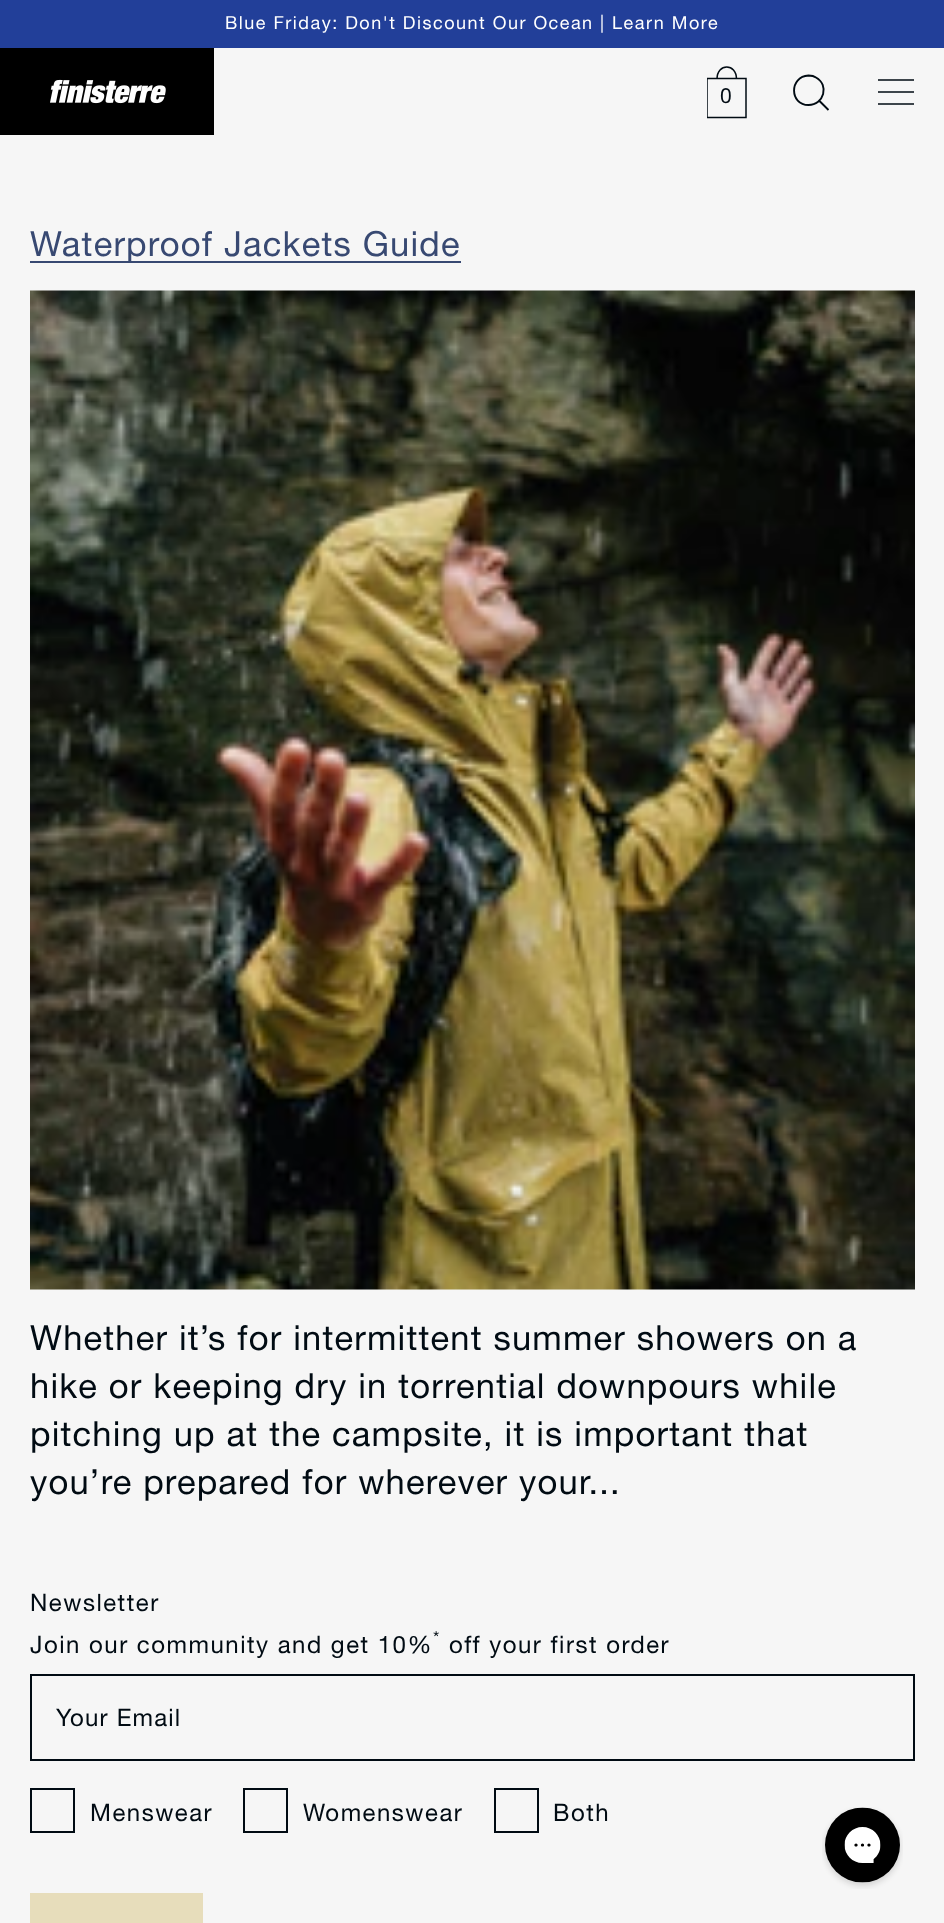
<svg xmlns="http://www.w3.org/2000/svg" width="944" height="1923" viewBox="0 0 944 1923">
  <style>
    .t1 { font: 18px 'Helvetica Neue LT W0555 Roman'; letter-spacing: 1.5px; fill: #fff; }
    .t2 { font: 21px 'Helvetica Neue LT W0555 Roman'; letter-spacing: 1.5px; fill: #010b13; }
    .t3 { font: 34.5px 'Helvetica Neue LT W0555 Roman'; letter-spacing: 1.2px; fill: #384972; }
    .t4 { font: 34.5px 'Helvetica Neue LT W0555 Roman'; letter-spacing: 1.2px; fill: #010b13; }
    .t5 { font: 24px 'Helvetica Neue LT W0555 Roman'; letter-spacing: 1.5px; fill: #010b13; }
    .t6 { font: 18px 'Helvetica Neue LT W0555 Roman'; letter-spacing: 1.5px; fill: #010b13; }
    .t7 { font: 24px 'Helvetica Neue LT W0555 Roman'; letter-spacing: 1.2px; fill: #010b13; }
  </style>
  <defs>
    <clipPath id="clip1"><rect x="707" y="66" width="40" height="53"/></clipPath>
  </defs>
  <rect width="100%" height="100%" fill="#f6f6f6"/>
  <rect x="0" y="0" width="944" height="48" fill="#223f99"/>
  <text x="225" y="29" class="t1">Blue Friday: Don't Discount Our Ocean | Learn More</text>
  <image x="0" y="48" width="214" height="87" href="images/1.png"/>
  <g clip-path="url(#clip1)">
    <path d="M707 78.5H746V117.5H707Z" fill="none" stroke="#010b13" stroke-width="1.5"/>
  </g>
  <path d="M736.5 79C736.5 63 717 63 717 79" fill="none" stroke="#010b13" stroke-width="1.5"/>
  <text x="720" y="103" class="t2">0</text>
  <path d="M808.5 105C824 105 829.5 85 816 77.5C814 76 811.5 75.5 808.5 75.5C789 76.5 789.5 105 808.5 105ZM819 100.5L828.5 110" fill="none" stroke="#010b13" stroke-width="1.9"/>
  <path d="M878 80H914M878 92H914M878 104H914" fill="none" stroke="#010b13" stroke-width="1.5"/>
  <rect x="30" y="261" width="431" height="2" fill="#384972"/>
  <text x="30" y="256" class="t3">Waterproof Jackets Guide</text>
  <image x="30" y="290" width="885" height="1000" href="images/2.png"/>
  <text x="30" y="1350" class="t4">Whether it’s for intermittent summer showers on a</text>
  <text x="30" y="1398" class="t4">hike or keeping dry in torrential downpours while</text>
  <text x="30" y="1446" class="t4">pitching up at the campsite, it is important that</text>
  <text x="30" y="1494" class="t4">you’re prepared for wherever your...</text>
  <text x="30" y="1611" class="t5">Newsletter</text>
  <text x="433" y="1644" class="t6">*</text>
  <text x="30" y="1653" class="t5">Join our community and get 10%</text>
  <text x="449" y="1653" class="t5">off your first order</text>
  <rect x="31" y="1675" width="883" height="85" fill="none" stroke="#010b13" stroke-width="2"/>
  <text x="56" y="1726" class="t7">Your Email</text>
  <rect x="31" y="1789" width="43" height="43" fill="none" stroke="#010b13" stroke-width="2"/>
  <text x="90" y="1821" class="t5">Menswear</text>
  <rect x="244" y="1789" width="43" height="43" fill="none" stroke="#010b13" stroke-width="2"/>
  <text x="303" y="1821" class="t5">Womenswear</text>
  <rect x="495" y="1789" width="43" height="43" fill="none" stroke="#010b13" stroke-width="2"/>
  <text x="553" y="1821" class="t5">Both</text>
  <rect x="30" y="1893" width="173" height="30" fill="#e7ddbb"/>
  <image x="822" y="1807" width="81" height="82" href="images/3.png"/>
</svg>
